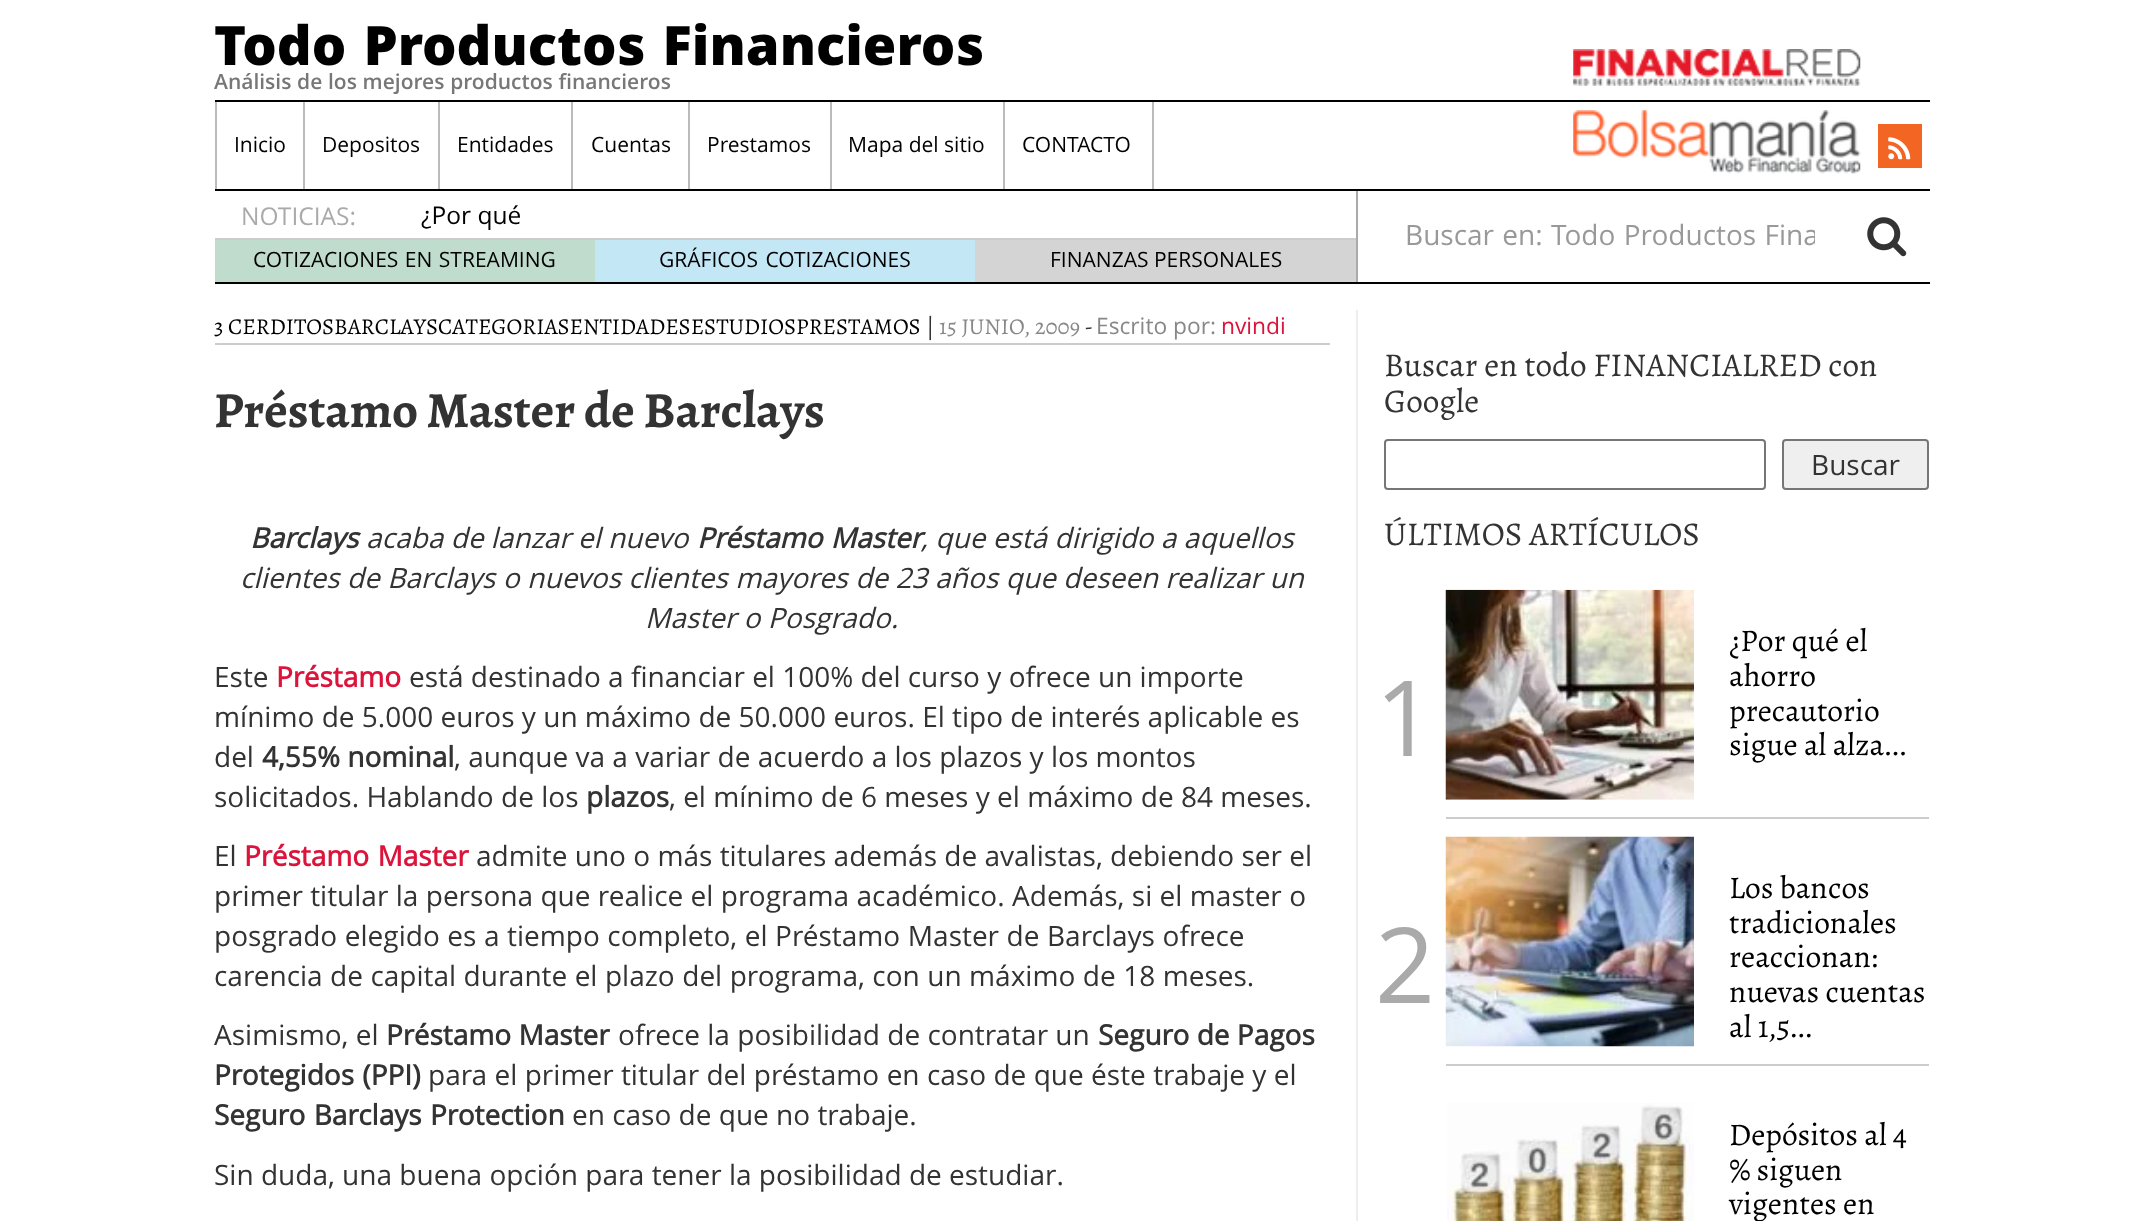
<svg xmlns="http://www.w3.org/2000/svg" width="2143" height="1221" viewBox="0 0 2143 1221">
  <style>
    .t1 { font: 800 54.25px Open Sans; fill: #000; }
    .t2 { font: 600 21px Open Sans; fill: #777; }
    .t3 { font: 21px Open Sans; fill: #000; }
    .t4 { font: 24.5px Open Sans; fill: #aaa; }
    .t5 { font: 24.5px Open Sans; fill: #000; }
    .t6 { font: 28px Open Sans; fill: #999; }
    .t7 { font: 22.75px Alegreya; fill: #000; }
    .t8 { font: 22.75px Alegreya; fill: #333; }
    .t9 { font: 22.75px Alegreya; fill: #888; }
    .t10 { font: 22.75px Open Sans; fill: #888; }
    .t11 { font: 22.75px Open Sans; fill: #dc143c; }
    .t12 { font: bold 50.75px Alegreya; fill: #333; }
    .t13 { font: italic bold 28px Open Sans; fill: #333; }
    .t14 { font: italic 28px Open Sans; fill: #333; }
    .t15 { font: 28px Open Sans; fill: #333; }
    .t16 { font: bold 28px Open Sans; fill: #dc143c; }
    .t17 { font: bold 28px Open Sans; fill: #333; }
    .t18 { font: 33.25px Alegreya; fill: #333; }
    .t19 { font: 105px Open Sans; fill: #aaa; }
    .t20 { font: 31.5px Alegreya; fill: #000; }
  </style>
  <defs>
    <clipPath id="clip1"><rect x="1405" y="215" width="410" height="39"/></clipPath>
  </defs>
  <rect width="100%" height="100%" fill="#fff"/>
  <rect x="215" y="100" width="1715" height="2" fill="#000"/>
  <text x="214" y="65" word-spacing="3" class="t1">Todo Productos Financieros</text>
  <text x="214" y="89" word-spacing="0.25" class="t2">Análisis de los mejores productos financieros</text>
  <rect x="215" y="189" width="1715" height="2" fill="#000"/>
  <rect x="215" y="102" width="2" height="87" fill="#bbb"/>
  <rect x="303" y="102" width="2" height="87" fill="#bbb"/>
  <text x="234" y="152" class="t3">Inicio</text>
  <rect x="438" y="102" width="2" height="87" fill="#bbb"/>
  <text x="322" y="152" class="t3">Depositos</text>
  <rect x="571" y="102" width="2" height="87" fill="#bbb"/>
  <text x="457" y="152" class="t3">Entidades</text>
  <rect x="688" y="102" width="2" height="87" fill="#bbb"/>
  <text x="591" y="152" class="t3">Cuentas</text>
  <rect x="830" y="102" width="2" height="87" fill="#bbb"/>
  <text x="707" y="152" class="t3">Prestamos</text>
  <rect x="1003" y="102" width="2" height="87" fill="#bbb"/>
  <text x="848" y="152" class="t3">Mapa del sitio</text>
  <rect x="1152" y="102" width="2" height="87" fill="#bbb"/>
  <text x="1022" y="152" class="t3">CONTACTO</text>
  <image x="1573" y="49" width="288" height="37" href="images/1.png"/>
  <image x="1573" y="110" width="288" height="64" href="images/2.png"/>
  <rect x="1878" y="124" width="44" height="44" fill="#f26522"/>
  <image x="1888" y="137" width="23" height="23" href="images/3.png"/>
  <rect x="215" y="282" width="1715" height="2" fill="#000"/>
  <rect x="1356" y="191" width="2" height="91" fill="#aaa"/>
  <text x="241" y="225" class="t4">NOTICIAS:</text>
  <text x="421" y="224" class="t5">¿Por qué</text>
  <rect x="215" y="238" width="1141" height="2" fill="#ccc"/>
  <rect x="215" y="240" width="380" height="42" fill="#c0dccd"/>
  <text x="253" y="267" word-spacing="1" class="t3">COTIZACIONES EN STREAMING</text>
  <rect x="595" y="240" width="380" height="42" fill="#c3e7f5"/>
  <text x="659" y="267" word-spacing="2" class="t3">GRÁFICOS COTIZACIONES</text>
  <rect x="975" y="240" width="381" height="42" fill="#d4d4d4"/>
  <text x="1050" y="267" class="t3">FINANZAS PERSONALES</text>
  <g clip-path="url(#clip1)">
    <text x="1405" y="245" word-spacing="1" class="t6">Buscar en: Todo Productos Fina</text>
  </g>
  <image x="1867" y="217" width="40" height="40" href="images/4.png"/>
  <rect x="1356" y="310" width="2" height="911" fill="#eee"/>
  <rect x="215" y="343" width="1115" height="2" fill="#ccc"/>
  <text x="214" y="334" class="t7">3 CERDITOSBARCLAYSCATEGORIASENTIDADESESTUDIOSPRESTAMOS</text>
  <text x="926" y="334" class="t8">|</text>
  <text x="939" y="334" class="t9">15 JUNIO, 2009</text>
  <text x="1085" y="334" class="t8">-</text>
  <text x="1096" y="334" class="t10">Escrito por:</text>
  <text x="1221" y="334" class="t11">nvindi</text>
  <text x="214" y="427" class="t12">Préstamo Master de Barclays</text>
  <text x="250" y="548" class="t13">Barclays</text>
  <text x="366" y="548" class="t14">acaba de lanzar el nuevo</text>
  <text x="697" y="548" word-spacing="1" class="t13">Préstamo Master</text>
  <text x="921" y="548" class="t14">, que está dirigido a aquellos</text>
  <text x="240" y="588" word-spacing="0.2" class="t14">clientes de Barclays o nuevos clientes mayores de 23 años que deseen realizar un</text>
  <text x="645" y="628" class="t14">Master o Posgrado.</text>
  <text x="214" y="687" class="t15">Este</text>
  <text x="276" y="687" class="t16">Préstamo</text>
  <text x="409" y="687" class="t15">está destinado a financiar el 100% del curso y ofrece un importe</text>
  <text x="214" y="727" class="t15">mínimo de 5.000 euros y un máximo de 50.000 euros. El tipo de interés aplicable es</text>
  <text x="214" y="767" class="t15">del</text>
  <text x="262" y="767" class="t17">4,55% nominal</text>
  <text x="454" y="767" class="t15">, aunque va a variar de acuerdo a los plazos y los montos</text>
  <text x="214" y="807" class="t15">solicitados. Hablando de los</text>
  <text x="586" y="807" class="t17">plazos</text>
  <text x="669" y="807" class="t15">, el mínimo de 6 meses y el máximo de 84 meses.</text>
  <text x="214" y="866" class="t15">El</text>
  <text x="244" y="866" word-spacing="1" class="t16">Préstamo Master</text>
  <text x="476" y="866" class="t15">admite uno o más titulares además de avalistas, debiendo ser el</text>
  <text x="214" y="906" word-spacing="0.1" class="t15">primer titular la persona que realice el programa académico. Además, si el master o</text>
  <text x="214" y="946" word-spacing="0.25" class="t15">posgrado elegido es a tiempo completo, el Préstamo Master de Barclays ofrece</text>
  <text x="214" y="986" word-spacing="0.2" class="t15">carencia de capital durante el plazo del programa, con un máximo de 18 meses.</text>
  <text x="214" y="1045" class="t15">Asimismo, el</text>
  <text x="386" y="1045" class="t17">Préstamo Master</text>
  <text x="618" y="1045" class="t15">ofrece la posibilidad de contratar un</text>
  <text x="1098" y="1045" class="t17">Seguro de Pagos</text>
  <text x="214" y="1085" word-spacing="1" class="t17">Protegidos (PPI)</text>
  <text x="428" y="1085" word-spacing="0.1" class="t15">para el primer titular del préstamo en caso de que éste trabaje y el</text>
  <text x="214" y="1125" word-spacing="1" class="t17">Seguro Barclays Protection</text>
  <text x="572" y="1125" class="t15">en caso de que no trabaje.</text>
  <text x="214" y="1185" class="t15">Sin duda, una buena opción para tener la posibilidad de estudiar.</text>
  <text x="1384" y="376" class="t18">Buscar en todo FINANCIALRED con</text>
  <text x="1384" y="412" class="t18">Google</text>
  <rect x="1385" y="440" width="380" height="49" rx="3" fill="none" stroke="#767676" stroke-width="2"/>
  <rect x="1783" y="440" width="145" height="49" rx="3" fill="#efefef" stroke="#767676" stroke-width="2"/>
  <text x="1811" y="475" class="t15">Buscar</text>
  <text x="1384" y="545" class="t18">ÚLTIMOS ARTÍCULOS</text>
  <rect x="1446" y="817" width="483" height="2" fill="#ccc"/>
  <text x="1375" y="756" class="t19">1</text>
  <image x="1445" y="589" width="249" height="211" href="images/5.png"/>
  <text x="1729" y="651" class="t20">¿Por qué el</text>
  <text x="1729" y="686" class="t20">ahorro</text>
  <text x="1729" y="721" class="t20">precautorio</text>
  <text x="1729" y="755" class="t20">sigue al alza...</text>
  <rect x="1446" y="1064" width="483" height="2" fill="#ccc"/>
  <text x="1375" y="1003" class="t19">2</text>
  <image x="1445" y="836" width="249" height="211" href="images/6.png"/>
  <text x="1729" y="898" class="t20">Los bancos</text>
  <text x="1729" y="933" class="t20">tradicionales</text>
  <text x="1729" y="967" class="t20">reaccionan:</text>
  <text x="1729" y="1002" class="t20">nuevas cuentas</text>
  <text x="1729" y="1037" class="t20">al 1,5...</text>
  <image x="1447" y="1103" width="247" height="118" href="images/7.png"/>
  <text x="1729" y="1145" class="t20">Depósitos al 4</text>
  <text x="1729" y="1180" class="t20">% siguen</text>
  <text x="1729" y="1214" class="t20">vigentes en</text>
</svg>
